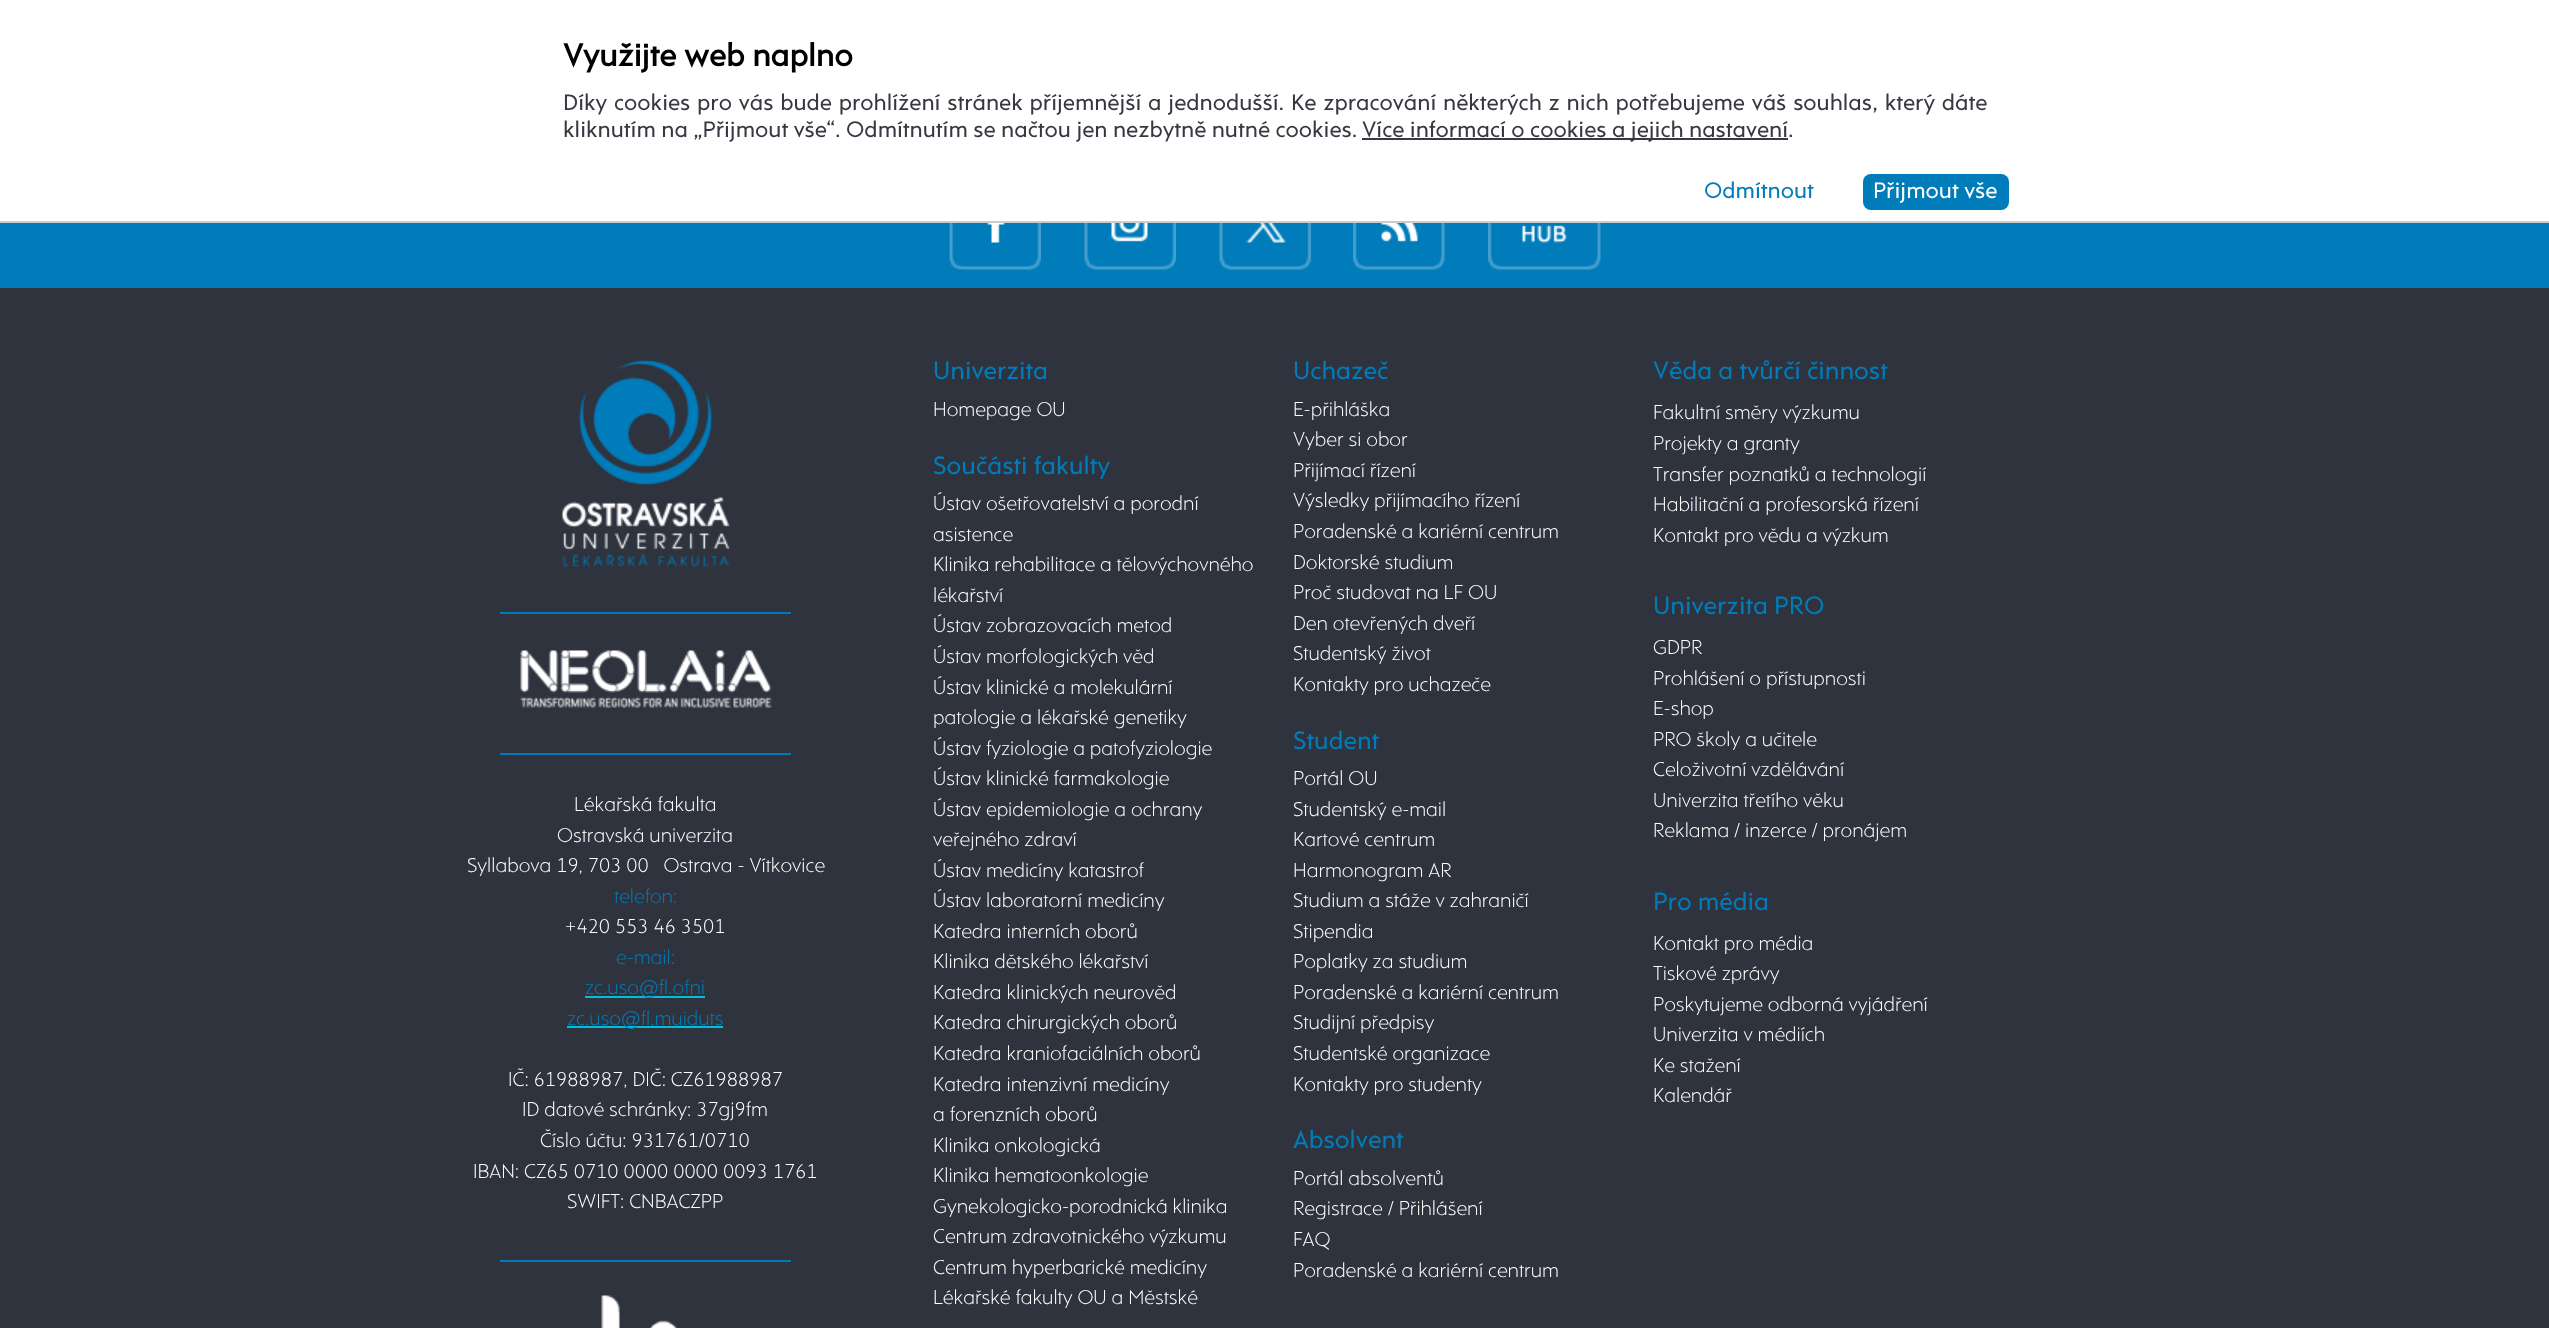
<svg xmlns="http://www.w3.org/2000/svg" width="2549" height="1328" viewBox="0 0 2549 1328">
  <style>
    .t1 { font: bold 32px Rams; fill: #000; }
    .t2 { font: 22.9px Rams; fill: #373841; }
    .t3 { font: 22.9px Rams; fill: #007cba; }
    .t4 { font: 22.9px Rams; fill: #fff; }
    .t5 { font: 20.4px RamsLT; fill: #fff; }
    .t6 { font: 20.4px RamsLT; fill: #007cba; }
    .t7 { font: 25.5px Rams; fill: #007cba; }
  </style>
  <rect width="100%" height="100%" fill="#007cba"/>
  <rect x="0" y="0" width="2549" height="221" fill="#fff"/>
  <rect x="0" y="221" width="2549" height="2" fill="#ccc"/>
  <text x="563" y="66" class="t1">Využijte web naplno</text>
  <text x="563" y="110" word-spacing="1.3" class="t2">Díky cookies pro vás bude prohlížení stránek příjemnější a jednodušší. Ke zpracování některých z nich potřebujeme váš souhlas, který dáte</text>
  <text x="563" y="137" class="t2">kliknutím na „Přijmout vše“. Odmítnutím se načtou jen nezbytně nutné cookies.</text>
  <rect x="1362" y="138" width="426" height="2" fill="#373841"/>
  <text x="1362" y="137" class="t2">Více informací o cookies a jejich nastavení</text>
  <text x="1788" y="137" class="t2">.</text>
  <text x="1704" y="198" class="t3">Odmítnout</text>
  <rect x="1863" y="174" width="146" height="36" rx="8" fill="#007cba"/>
  <text x="1873" y="198" class="t4">Přijmout vše</text>
  <image x="949" y="223" width="92" height="47" href="images/1.png"/>
  <image x="1084" y="223" width="92" height="47" href="images/2.png"/>
  <image x="1219" y="223" width="92" height="47" href="images/3.png"/>
  <image x="1353" y="223" width="92" height="47" href="images/4.png"/>
  <image x="1488" y="223" width="113" height="47" href="images/5.png"/>
  <rect x="0" y="288" width="2549" height="1040" fill="#2f333e"/>
  <image x="561" y="359" width="169" height="208" href="images/6.png"/>
  <rect x="500" y="612" width="291" height="2" fill="#007cba"/>
  <image x="520" y="650" width="252" height="58" href="images/7.png"/>
  <rect x="500" y="753" width="291" height="2" fill="#007cba"/>
  <text x="574" y="811" class="t5">Lékařská fakulta</text>
  <text x="557" y="842" class="t5">Ostravská univerzita</text>
  <text x="467" y="872" class="t5" xml:space="preserve">Syllabova 19, 703 00   Ostrava - Vítkovice</text>
  <text x="614" y="903" class="t6">telefon:</text>
  <text x="565" y="933" class="t5">+420 553 46 3501</text>
  <text x="616" y="964" class="t6">e-mail:</text>
  <rect x="585" y="996" width="120" height="2" fill="#00bfd8"/>
  <text x="585" y="994" class="t6">zc.uso@fl.ofni</text>
  <rect x="567" y="1026" width="156" height="2" fill="#00bfd8"/>
  <text x="567" y="1025" class="t6">zc.uso@fl.muiduts</text>
  <text x="508" y="1086" class="t5">IČ: 61988987, DIČ: CZ61988987</text>
  <text x="522" y="1116" class="t5">ID datové schránky: 37gj9fm</text>
  <text x="540" y="1147" class="t5">Číslo účtu: 931761/0710</text>
  <text x="473" y="1178" class="t5">IBAN: CZ65 0710 0000 0000 0093 1761</text>
  <text x="567" y="1208" class="t5">SWIFT: CNBACZPP</text>
  <rect x="500" y="1260" width="291" height="2" fill="#007cba"/>
  <image x="601" y="1295" width="76" height="33" href="images/8.png"/>
  <text x="933" y="379" class="t7">Univerzita</text>
  <text x="933" y="416" class="t5">Homepage OU</text>
  <text x="933" y="474" class="t7">Součásti fakulty</text>
  <text x="933" y="510" class="t5">Ústav ošetřovatelství a porodní</text>
  <text x="933" y="541" class="t5">asistence</text>
  <text x="933" y="571" class="t5">Klinika rehabilitace a tělovýchovného</text>
  <text x="933" y="602" class="t5">lékařství</text>
  <text x="933" y="632" class="t5">Ústav zobrazovacích metod</text>
  <text x="933" y="663" class="t5">Ústav morfologických věd</text>
  <text x="933" y="694" class="t5">Ústav klinické a molekulární</text>
  <text x="933" y="724" class="t5">patologie a lékařské genetiky</text>
  <text x="933" y="755" class="t5">Ústav fyziologie a patofyziologie</text>
  <text x="933" y="785" class="t5">Ústav klinické farmakologie</text>
  <text x="933" y="816" class="t5">Ústav epidemiologie a ochrany</text>
  <text x="933" y="846" class="t5">veřejného zdraví</text>
  <text x="933" y="877" class="t5">Ústav medicíny katastrof</text>
  <text x="933" y="907" class="t5">Ústav laboratorní medicíny</text>
  <text x="933" y="938" class="t5">Katedra interních oborů</text>
  <text x="933" y="968" class="t5">Klinika dětského lékařství</text>
  <text x="933" y="999" class="t5">Katedra klinických neurověd</text>
  <text x="933" y="1029" class="t5">Katedra chirurgických oborů</text>
  <text x="933" y="1060" class="t5">Katedra kraniofaciálních oborů</text>
  <text x="933" y="1091" class="t5">Katedra intenzivní medicíny</text>
  <text x="933" y="1121" class="t5">a forenzních oborů</text>
  <text x="933" y="1152" class="t5">Klinika onkologická</text>
  <text x="933" y="1182" class="t5">Klinika hematoonkologie</text>
  <text x="933" y="1213" class="t5">Gynekologicko-porodnická klinika</text>
  <text x="933" y="1243" class="t5">Centrum zdravotnického výzkumu</text>
  <text x="933" y="1274" class="t5">Centrum hyperbarické medicíny</text>
  <text x="933" y="1304" class="t5">Lékařské fakulty OU a Městské</text>
  <text x="1293" y="379" class="t7">Uchazeč</text>
  <text x="1293" y="416" class="t5">E-přihláška</text>
  <text x="1293" y="446" class="t5">Vyber si obor</text>
  <text x="1293" y="477" class="t5">Přijímací řízení</text>
  <text x="1293" y="507" class="t5">Výsledky přijímacího řízení</text>
  <text x="1293" y="538" class="t5">Poradenské a kariérní centrum</text>
  <text x="1293" y="569" class="t5">Doktorské studium</text>
  <text x="1293" y="599" class="t5">Proč studovat na LF OU</text>
  <text x="1293" y="630" class="t5">Den otevřených dveří</text>
  <text x="1293" y="660" class="t5">Studentský život</text>
  <text x="1293" y="691" class="t5">Kontakty pro uchazeče</text>
  <text x="1293" y="749" class="t7">Student</text>
  <text x="1293" y="785" class="t5">Portál OU</text>
  <text x="1293" y="816" class="t5">Studentský e-mail</text>
  <text x="1293" y="846" class="t5">Kartové centrum</text>
  <text x="1293" y="877" class="t5">Harmonogram AR</text>
  <text x="1293" y="907" class="t5">Studium a stáže v zahraničí</text>
  <text x="1293" y="938" class="t5">Stipendia</text>
  <text x="1293" y="968" class="t5">Poplatky za studium</text>
  <text x="1293" y="999" class="t5">Poradenské a kariérní centrum</text>
  <text x="1293" y="1029" class="t5">Studijní předpisy</text>
  <text x="1293" y="1060" class="t5">Studentské organizace</text>
  <text x="1293" y="1091" class="t5">Kontakty pro studenty</text>
  <text x="1293" y="1148" class="t7">Absolvent</text>
  <text x="1293" y="1185" class="t5">Portál absolventů</text>
  <text x="1293" y="1215" class="t5">Registrace / Přihlášení</text>
  <text x="1293" y="1246" class="t5">FAQ</text>
  <text x="1293" y="1277" class="t5">Poradenské a kariérní centrum</text>
  <text x="1653" y="379" class="t7">Věda a tvůrčí činnost</text>
  <text x="1653" y="419" class="t5">Fakultní směry výzkumu</text>
  <text x="1653" y="450" class="t5">Projekty a granty</text>
  <text x="1653" y="481" class="t5">Transfer poznatků a technologií</text>
  <text x="1653" y="511" class="t5">Habilitační a profesorská řízení</text>
  <text x="1653" y="542" class="t5">Kontakt pro vědu a výzkum</text>
  <text x="1653" y="614" class="t7">Univerzita PRO</text>
  <text x="1653" y="654" class="t5">GDPR</text>
  <text x="1653" y="685" class="t5">Prohlášení o přístupnosti</text>
  <text x="1653" y="715" class="t5">E-shop</text>
  <text x="1653" y="746" class="t5">PRO školy a učitele</text>
  <text x="1653" y="776" class="t5">Celoživotní vzdělávání</text>
  <text x="1653" y="807" class="t5">Univerzita třetího věku</text>
  <text x="1653" y="837" class="t5">Reklama / inzerce / pronájem</text>
  <text x="1653" y="910" class="t7">Pro média</text>
  <text x="1653" y="950" class="t5">Kontakt pro média</text>
  <text x="1653" y="980" class="t5">Tiskové zprávy</text>
  <text x="1653" y="1011" class="t5">Poskytujeme odborná vyjádření</text>
  <text x="1653" y="1041" class="t5">Univerzita v médiích</text>
  <text x="1653" y="1072" class="t5">Ke stažení</text>
  <text x="1653" y="1102" class="t5">Kalendář</text>
</svg>
